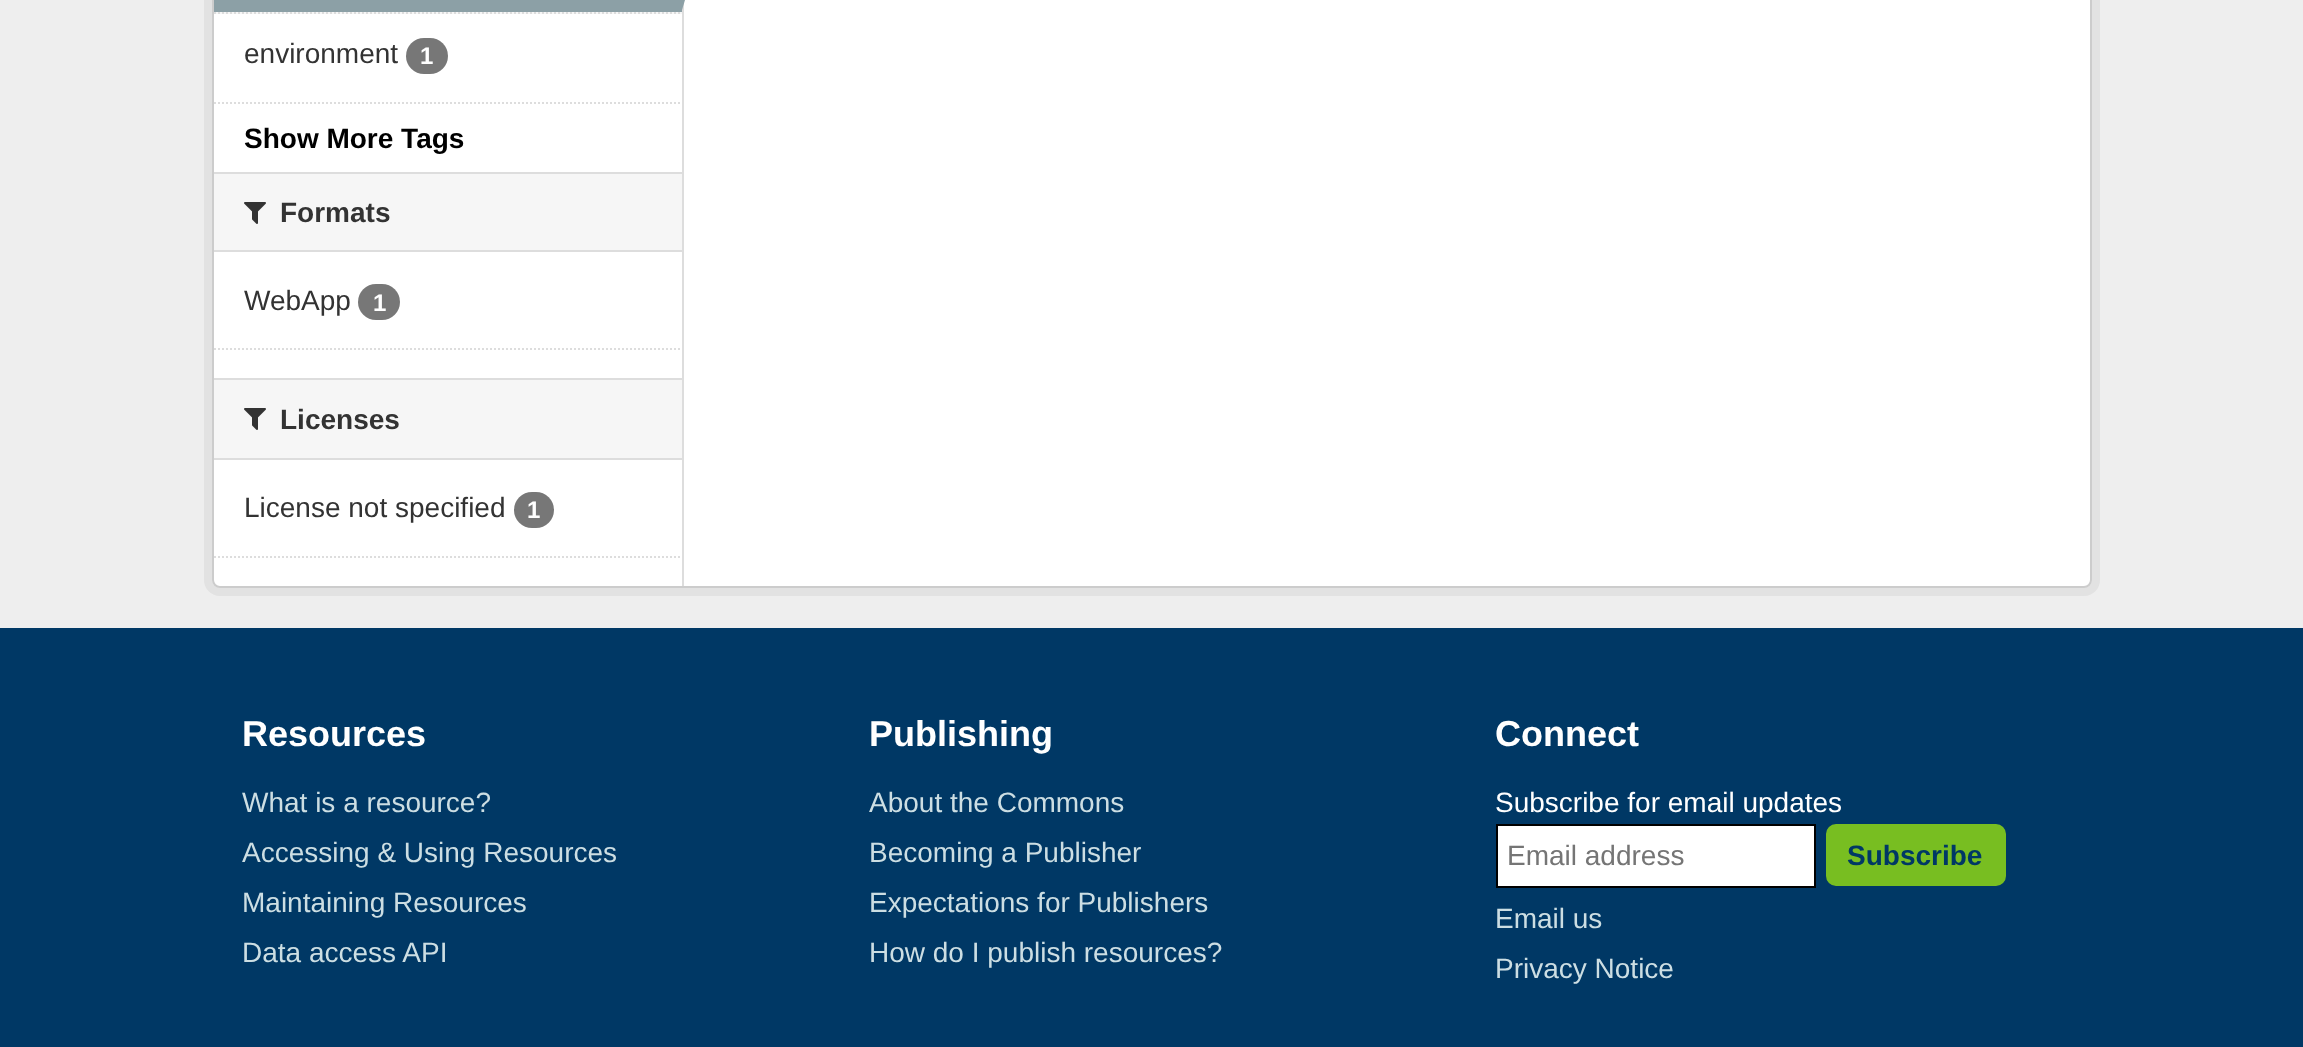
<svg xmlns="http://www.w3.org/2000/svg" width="2303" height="1047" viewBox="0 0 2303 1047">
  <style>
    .t1 { font: 28px Liberation Sans; fill: #333; }
    .t2 { font: bold 24px Liberation Sans; fill: #fff; }
    .t3 { font: bold 28px Liberation Sans; fill: #000; }
    .t4 { font: bold 28px Liberation Sans; fill: #333; }
    .t5 { font: bold 36px Liberation Sans; fill: #fff; }
    .t6 { font: 28px Liberation Sans; fill: #ccdee3; }
    .t7 { font: 28px Liberation Sans; fill: #fff; }
    .t8 { font: 28px Liberation Sans; fill: #757575; }
    .t9 { font: bold 28px Liberation Sans; fill: #003865; }
  </style>
  <rect width="100%" height="100%" fill="#003865"/>
  <rect x="0" y="0" width="2303" height="628" fill="#eee"/>
  <rect x="208" y="-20" width="1888" height="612" rx="12" fill="none" stroke="#e2e2e2" stroke-width="8"/>
  <rect x="213" y="-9" width="1878" height="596" rx="7" fill="#fff" stroke="#ccc" stroke-width="2"/>
  <rect x="216" y="12" width="466" height="2" fill="#f6f6f6"/>
  <path d="M214 13H682" fill="none" stroke="#ddd" stroke-width="2" stroke-dasharray="2 2"/>
  <rect x="214" y="0" width="468" height="12" fill="#8ca0a6"/>
  <rect x="682" y="0" width="2" height="586" fill="#ddd"/>
  <path d="M682 10V-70L694-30Z" fill="#8ca0a6"/>
  <text x="244" y="63" class="t1">environment</text>
  <rect x="406" y="38" width="42" height="36" rx="18" fill="#777"/>
  <text x="420" y="64" class="t2">1</text>
  <path d="M214 103H682" fill="none" stroke="#ddd" stroke-width="2" stroke-dasharray="2 2"/>
  <text x="244" y="148" class="t3">Show More Tags</text>
  <rect x="214" y="174" width="468" height="76" fill="#f6f6f6"/>
  <rect x="214" y="172" width="468" height="2" fill="#ddd"/>
  <rect x="214" y="250" width="468" height="2" fill="#ddd"/>
  <image x="244" y="202" width="22" height="22" href="images/1.png"/>
  <text x="280" y="222" class="t4">Formats</text>
  <text x="244" y="310" class="t1">WebApp</text>
  <rect x="358" y="284" width="42" height="36" rx="18" fill="#777"/>
  <text x="373" y="311" class="t2">1</text>
  <path d="M214 349H682" fill="none" stroke="#ddd" stroke-width="2" stroke-dasharray="2 2"/>
  <rect x="214" y="380" width="468" height="78" fill="#f6f6f6"/>
  <rect x="214" y="378" width="468" height="2" fill="#ddd"/>
  <rect x="214" y="458" width="468" height="2" fill="#ddd"/>
  <image x="244" y="408" width="22" height="22" href="images/1.png"/>
  <text x="280" y="429" class="t4">Licenses</text>
  <text x="244" y="517" class="t1">License not specified</text>
  <rect x="514" y="492" width="40" height="36" rx="18" fill="#777"/>
  <text x="527" y="518" class="t2">1</text>
  <path d="M214 557H682" fill="none" stroke="#ddd" stroke-width="2" stroke-dasharray="2 2"/>
  <text x="242" y="746" class="t5">Resources</text>
  <text x="242" y="812" class="t6">What is a resource?</text>
  <text x="242" y="862" class="t6">Accessing &amp; Using Resources</text>
  <text x="242" y="912" class="t6">Maintaining Resources</text>
  <text x="242" y="962" class="t6">Data access API</text>
  <text x="869" y="746" class="t5">Publishing</text>
  <text x="869" y="812" class="t6">About the Commons</text>
  <text x="869" y="862" class="t6">Becoming a Publisher</text>
  <text x="869" y="912" class="t6">Expectations for Publishers</text>
  <text x="869" y="962" class="t6">How do I publish resources?</text>
  <text x="1495" y="746" class="t5">Connect</text>
  <text x="1495" y="812" class="t7">Subscribe for email updates</text>
  <rect x="1497" y="825" width="318" height="62" fill="#fff" stroke="#000" stroke-width="2"/>
  <text x="1507" y="865" class="t8">Email address</text>
  <rect x="1825" y="823" width="182" height="64" rx="11" fill="#78be21" stroke="#003865" stroke-width="2"/>
  <text x="1847" y="865" class="t9">Subscribe</text>
  <text x="1495" y="928" class="t6">Email us</text>
  <text x="1495" y="978" class="t6">Privacy Notice</text>
</svg>
